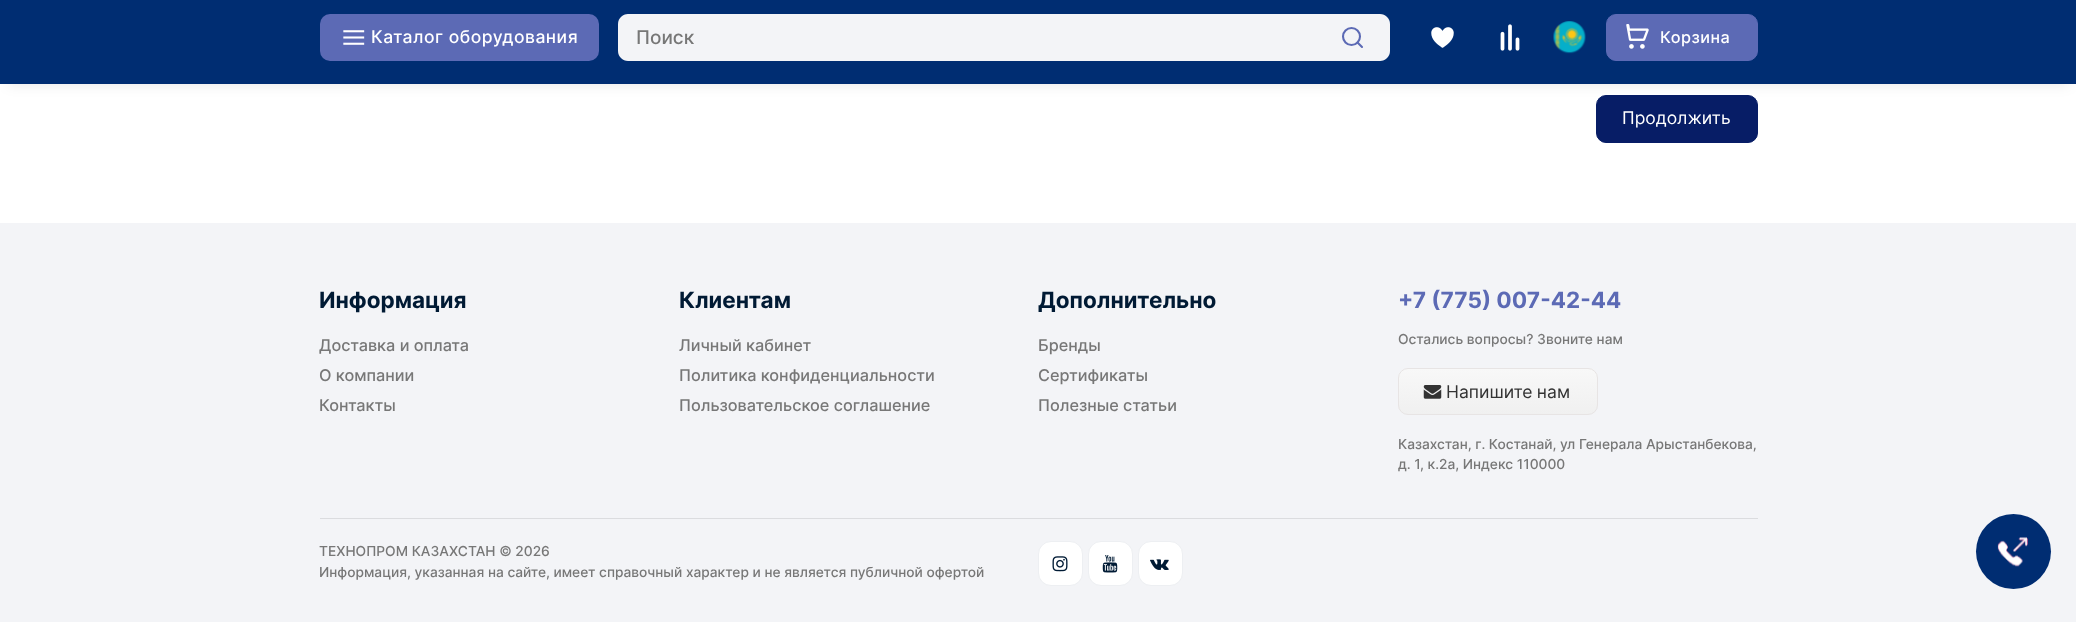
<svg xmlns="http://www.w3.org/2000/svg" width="2076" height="622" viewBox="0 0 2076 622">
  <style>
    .t1 { font: 500 17.5px Inter; letter-spacing: 0.5px; fill: #fff; }
    .t2 { font: 500 19px Inter; fill: #777; }
    .t3 { font: 500 16.25px Inter; letter-spacing: 0.5px; fill: #fff; }
    .t4 { font: 17.5px Inter; fill: #fff; }
    .t5 { font: bold 22.5px Inter; fill: #001a34; }
    .t6 { font: 500 16.25px Inter; fill: #777; }
    .t7 { font: bold 22.5px Inter; fill: #5c6ab5; }
    .t8 { font: 500 13.75px Inter; fill: #777; }
    .t9 { font: 17.5px Inter; fill: #333; }
  </style>
  <defs>
    <clipPath id="clip1"><rect x="1398" y="368" width="200" height="47" rx="10"/></clipPath>
    <linearGradient id="g1" gradientUnits="userSpaceOnUse" x1="1498" y1="369" x2="1498" y2="414"><stop offset="0" stop-color="#f8f8f8"/><stop offset="1" stop-color="#f0f0f0"/></linearGradient>
  </defs>
  <rect width="100%" height="100%" fill="#fff"/>
  <rect x="1596.5" y="95.5" width="161" height="47" rx="9.5" fill="#071d66" stroke="#071d66"/>
  <rect x="8" y="-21" width="2061" height="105" fill="#0000001a" filter="blur(7px)"/>
  <rect x="0" y="0" width="2076" height="84" fill="#002d72"/>
  <rect x="320" y="14" width="279" height="47" rx="10" fill="#5c6ab5"/>
  <image x="343" y="30" width="22" height="15" href="images/1.png"/>
  <text x="371" y="43" class="t1">Каталог оборудования</text>
  <path d="M628 14H1315V61H628C622.5 61 618 56.5 618 51V24C618 18.5 622.5 14 628 14Z" fill="#f3f4f7"/>
  <text x="636" y="44" class="t2">Поиск</text>
  <path d="M1314 14H1380C1385.5 14 1390 18.5 1390 24V51C1390 56.5 1385.5 61 1380 61H1314Z" fill="#f3f4f7"/>
  <circle cx="1351.5" cy="36.5" r="8.5" fill="none" stroke="#5c6ab5" stroke-width="2.1"/>
  <path d="M1362 47L1357.5 42.5" fill="none" stroke="#5c6ab5" stroke-width="2.1" stroke-linecap="round" stroke-linejoin="round"/>
  <image x="1431" y="27" width="23" height="21" href="images/2.png"/>
  <image x="1500" y="24" width="20" height="27" href="images/3.png"/>
  <image x="1553" y="21" width="33" height="33" href="images/4.png"/>
  <rect x="1606.5" y="14.5" width="151" height="46" rx="9.5" fill="#5c6ab5" stroke="#5c6ab5"/>
  <image x="1626" y="24" width="23" height="25" href="images/5.png"/>
  <text x="1660" y="43" class="t3">Корзина</text>
  <text x="1622" y="124" class="t4">Продолжить</text>
  <rect x="0" y="223" width="2076" height="399" fill="#f3f4f7"/>
  <text x="319" y="308" class="t5">Информация</text>
  <text x="319" y="351" class="t6">Доставка и оплата</text>
  <text x="319" y="381" class="t6">О компании</text>
  <text x="319" y="411" class="t6">Контакты</text>
  <text x="679" y="308" class="t5">Клиентам</text>
  <text x="679" y="351" class="t6">Личный кабинет</text>
  <text x="679" y="381" class="t6">Политика конфиденциальности</text>
  <text x="679" y="411" class="t6">Пользовательское соглашение</text>
  <text x="1038" y="308" class="t5">Дополнительно</text>
  <text x="1038" y="351" class="t6">Бренды</text>
  <text x="1038" y="381" class="t6">Сертификаты</text>
  <text x="1038" y="411" class="t6">Полезные статьи</text>
  <text x="1398" y="308" class="t7">+7 (775) 007-42-44</text>
  <text x="1398" y="344" class="t8">Остались вопросы? Звоните нам</text>
  <g clip-path="url(#clip1)">
    <rect x="1398" y="369" width="200" height="45" fill="url(#g1)"/>
  </g>
  <rect x="1398.5" y="368.5" width="199" height="46" rx="9.5" fill="none" stroke="#e7e4e4"/>
  <image x="1423" y="385" width="19" height="14" href="images/6.png"/>
  <text x="1446" y="398" class="t9">Напишите нам</text>
  <text x="1398" y="449" class="t8">Казахстан, г. Костанай, ул Генерала Арыстанбекова,</text>
  <text x="1398" y="469" class="t8">д. 1, к.2а, Индекс 110000</text>
  <rect x="320" y="518" width="1438" height="1" fill="#dbdcdf"/>
  <text x="319" y="556" class="t8">ТЕХНОПРОМ КАЗАХСТАН © 2026</text>
  <text x="319" y="577" class="t8">Информация, указанная на сайте, имеет справочный характер и не является публичной офертой</text>
  <rect x="1038.5" y="541.5" width="44" height="44" rx="12.5" fill="#fff" stroke="#edeff2"/>
  <image x="1052" y="556" width="16" height="16" href="images/7.png"/>
  <rect x="1088.5" y="541.5" width="44" height="44" rx="12.5" fill="#fff" stroke="#edeff2"/>
  <image x="1102" y="555" width="16" height="18" href="images/8.png"/>
  <rect x="1138.5" y="541.5" width="44" height="44" rx="12.5" fill="#fff" stroke="#edeff2"/>
  <image x="1150" y="559" width="19" height="11" href="images/9.png"/>
  <circle cx="2013.5" cy="551.5" r="37.5" fill="#002d72"/>
  <image x="1997" y="537" width="31" height="30" href="images/10.png"/>
</svg>
